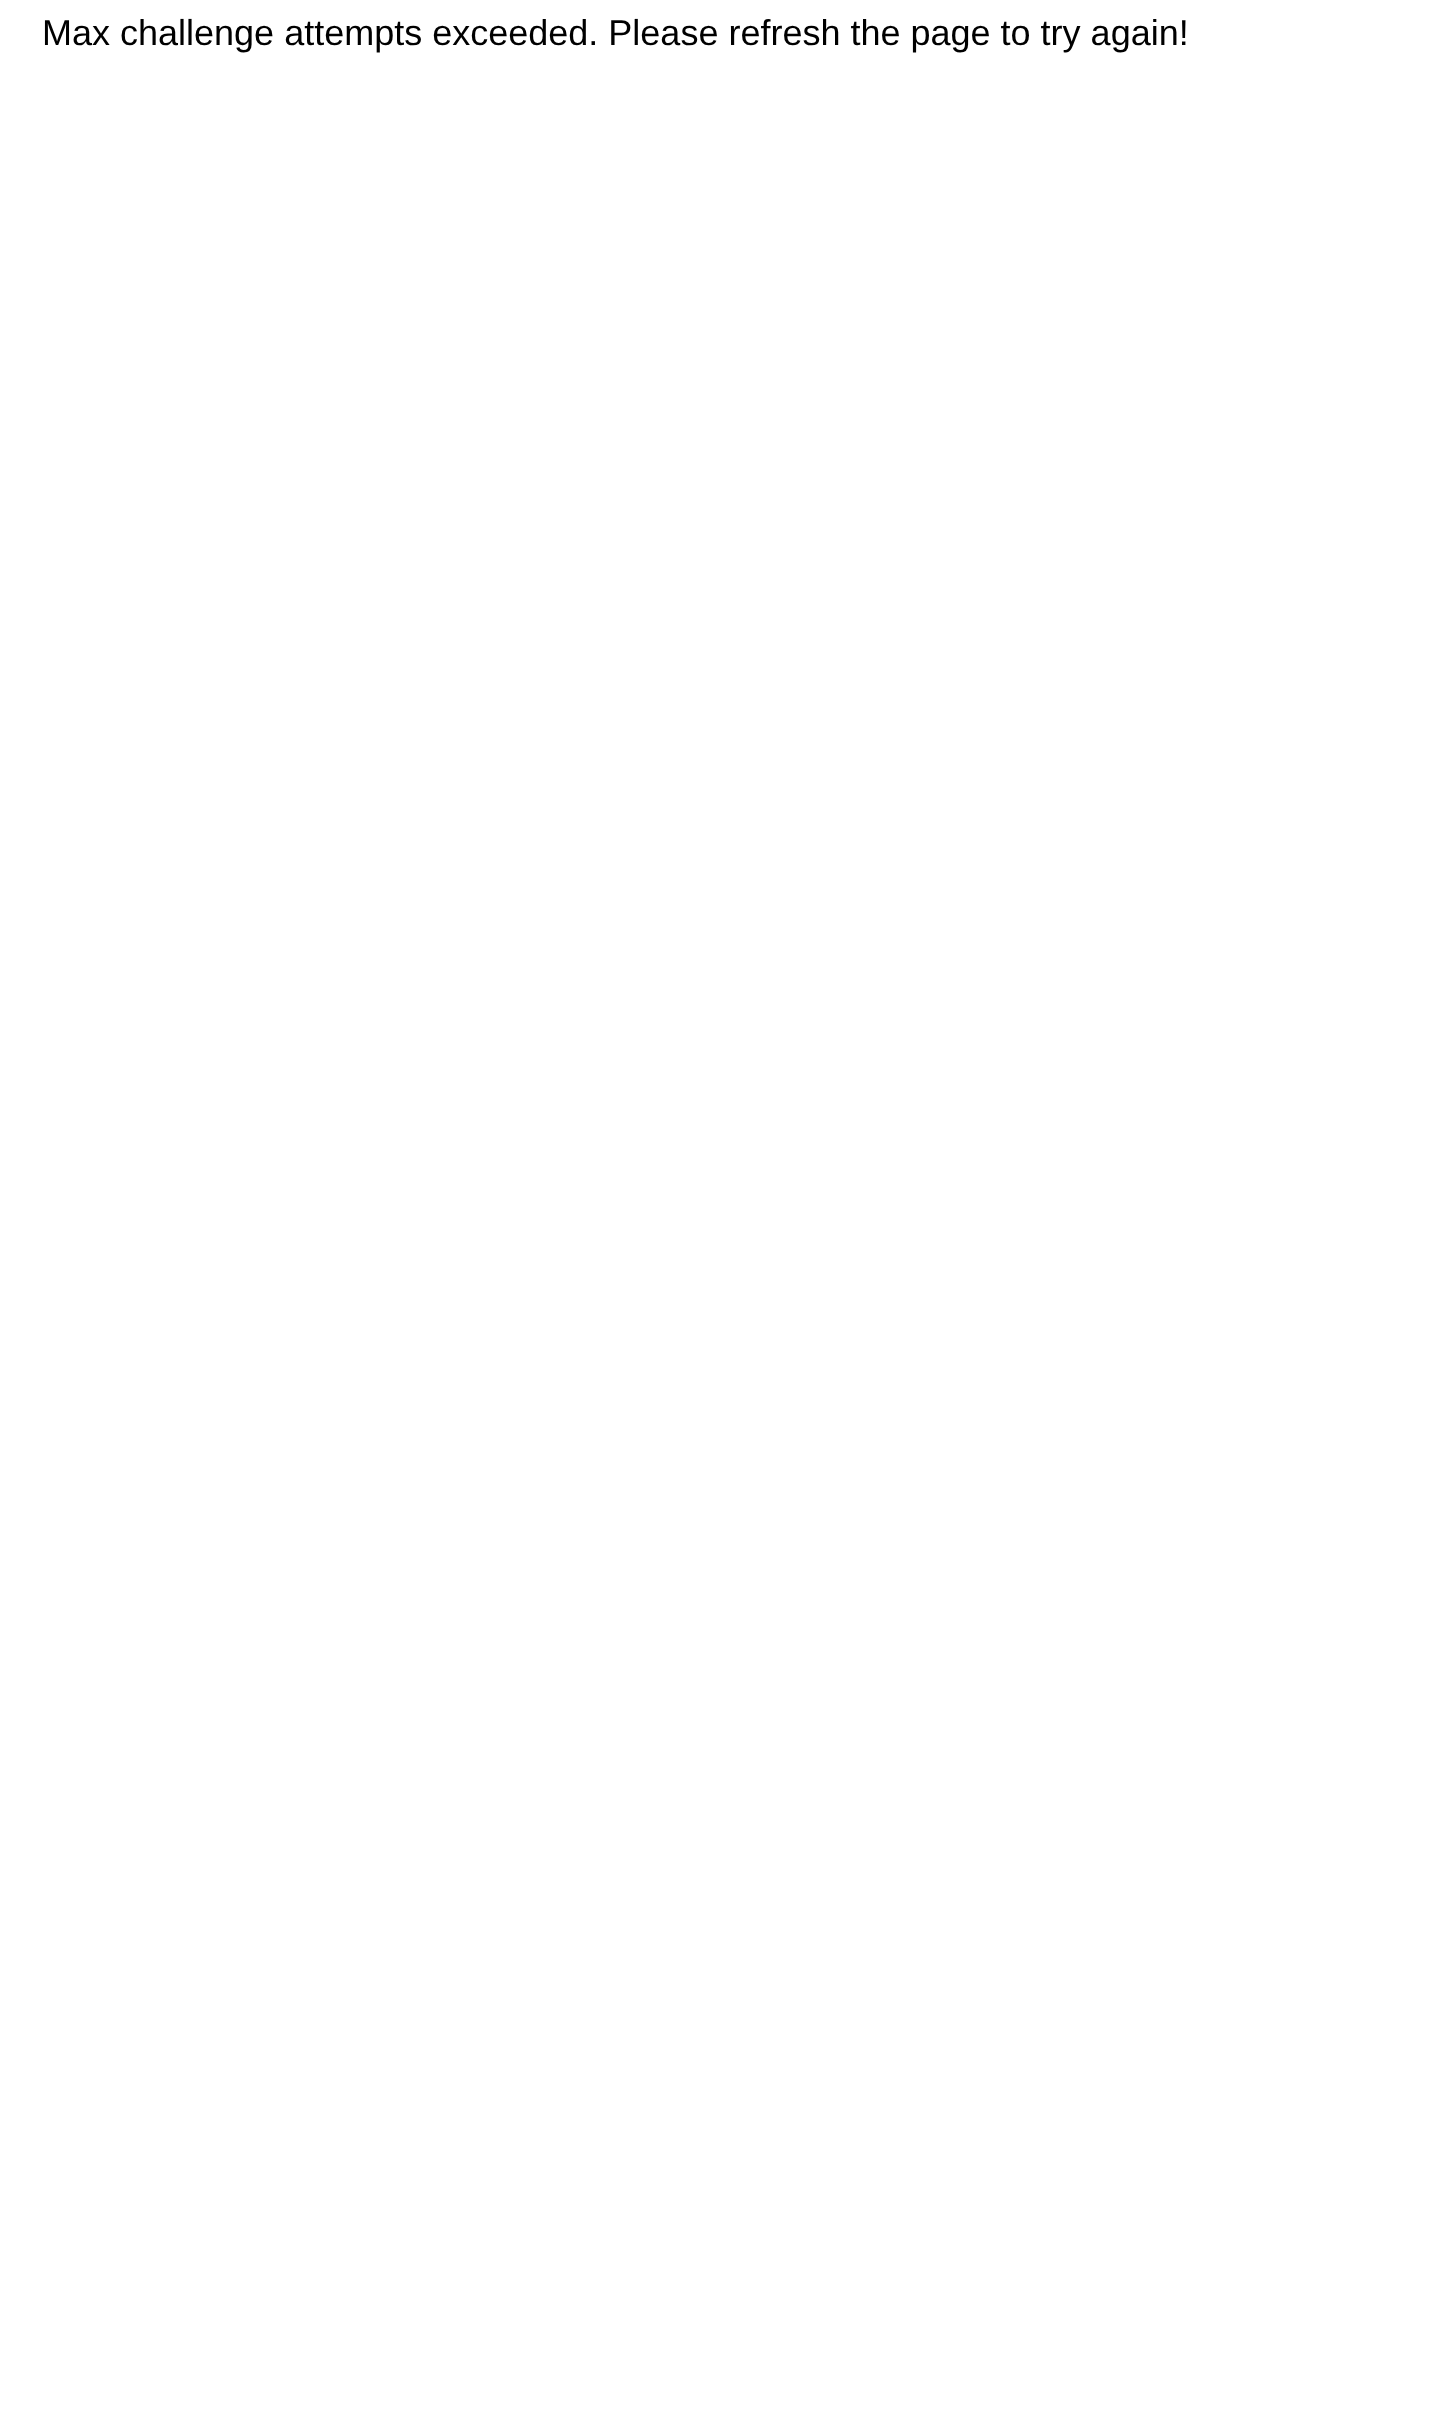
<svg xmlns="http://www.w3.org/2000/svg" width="1455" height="2417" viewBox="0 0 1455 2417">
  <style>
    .t1 { font: 36px Liberation Sans; fill: #000; }
  </style>
  <rect width="100%" height="100%" fill="#fff"/>
  <text x="42" y="45" class="t1">Max challenge attempts exceeded. Please refresh the page to try again!</text>
</svg>
